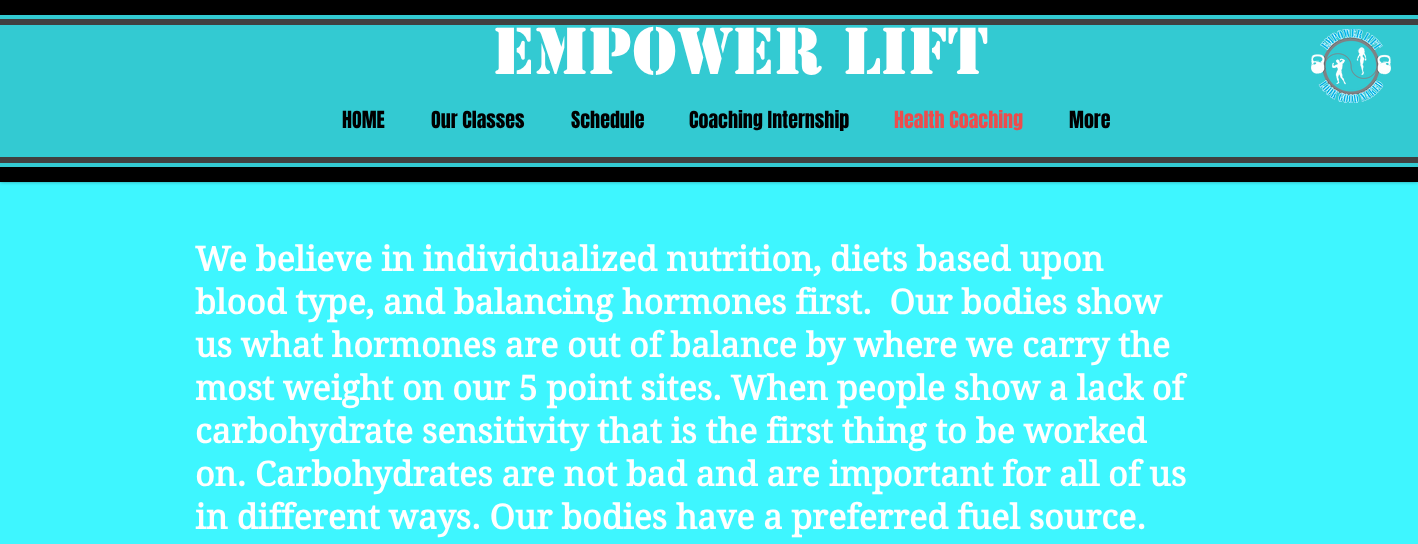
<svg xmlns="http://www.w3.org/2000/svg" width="1418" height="544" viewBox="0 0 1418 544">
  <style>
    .t1 { font: bold 62px 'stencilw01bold'; fill: #fff; }
    .t2 { font: 20px Anton; fill: #000; }
    .t3 { font: 20px Anton; fill: #ec4d4d; }
    .t4 { font: bold 34px 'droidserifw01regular'; fill: #fff; }
  </style>
  <rect width="100%" height="100%" fill="#3ef6ff"/>
  <rect x="0" y="3" width="1418" height="178" fill="#00000099" filter="blur(2px)"/>
  <rect x="0" y="15" width="1418" height="152" fill="#33cad2"/>
  <rect x="0" y="0" width="1418" height="15" fill="#000"/>
  <rect x="0" y="167" width="1418" height="15" fill="#000"/>
  <rect x="0" y="19" width="1418" height="6" fill="#404040"/>
  <rect x="0" y="157" width="1418" height="6" fill="#404040"/>
  <text x="493" y="74" class="t1">empower lift</text>
  <image x="1311" y="29" width="80" height="74" href="images/1.png"/>
  <text x="342" y="128" class="t2">HOME</text>
  <text x="431" y="128" class="t2">Our Classes</text>
  <text x="571" y="128" class="t2">Schedule</text>
  <text x="689" y="128" class="t2">Coaching Internship</text>
  <text x="894" y="128" class="t3">Health Coaching</text>
  <text x="1069" y="128" class="t2">More</text>
  <text x="195" y="271" class="t4">We believe in individualized nutrition, diets based upon</text>
  <text x="195" y="314" class="t4" xml:space="preserve">blood type, and balancing hormones first.  Our bodies show</text>
  <text x="195" y="357" class="t4">us what hormones are out of balance by where we carry the</text>
  <text x="195" y="400" class="t4">most weight on our 5 point sites. When people show a lack of</text>
  <text x="195" y="443" class="t4">carbohydrate sensitivity that is the first thing to be worked</text>
  <text x="195" y="486" class="t4">on. Carbohydrates are not bad and are important for all of us</text>
  <text x="195" y="529" class="t4">in different ways. Our bodies have a preferred fuel source.</text>
</svg>
